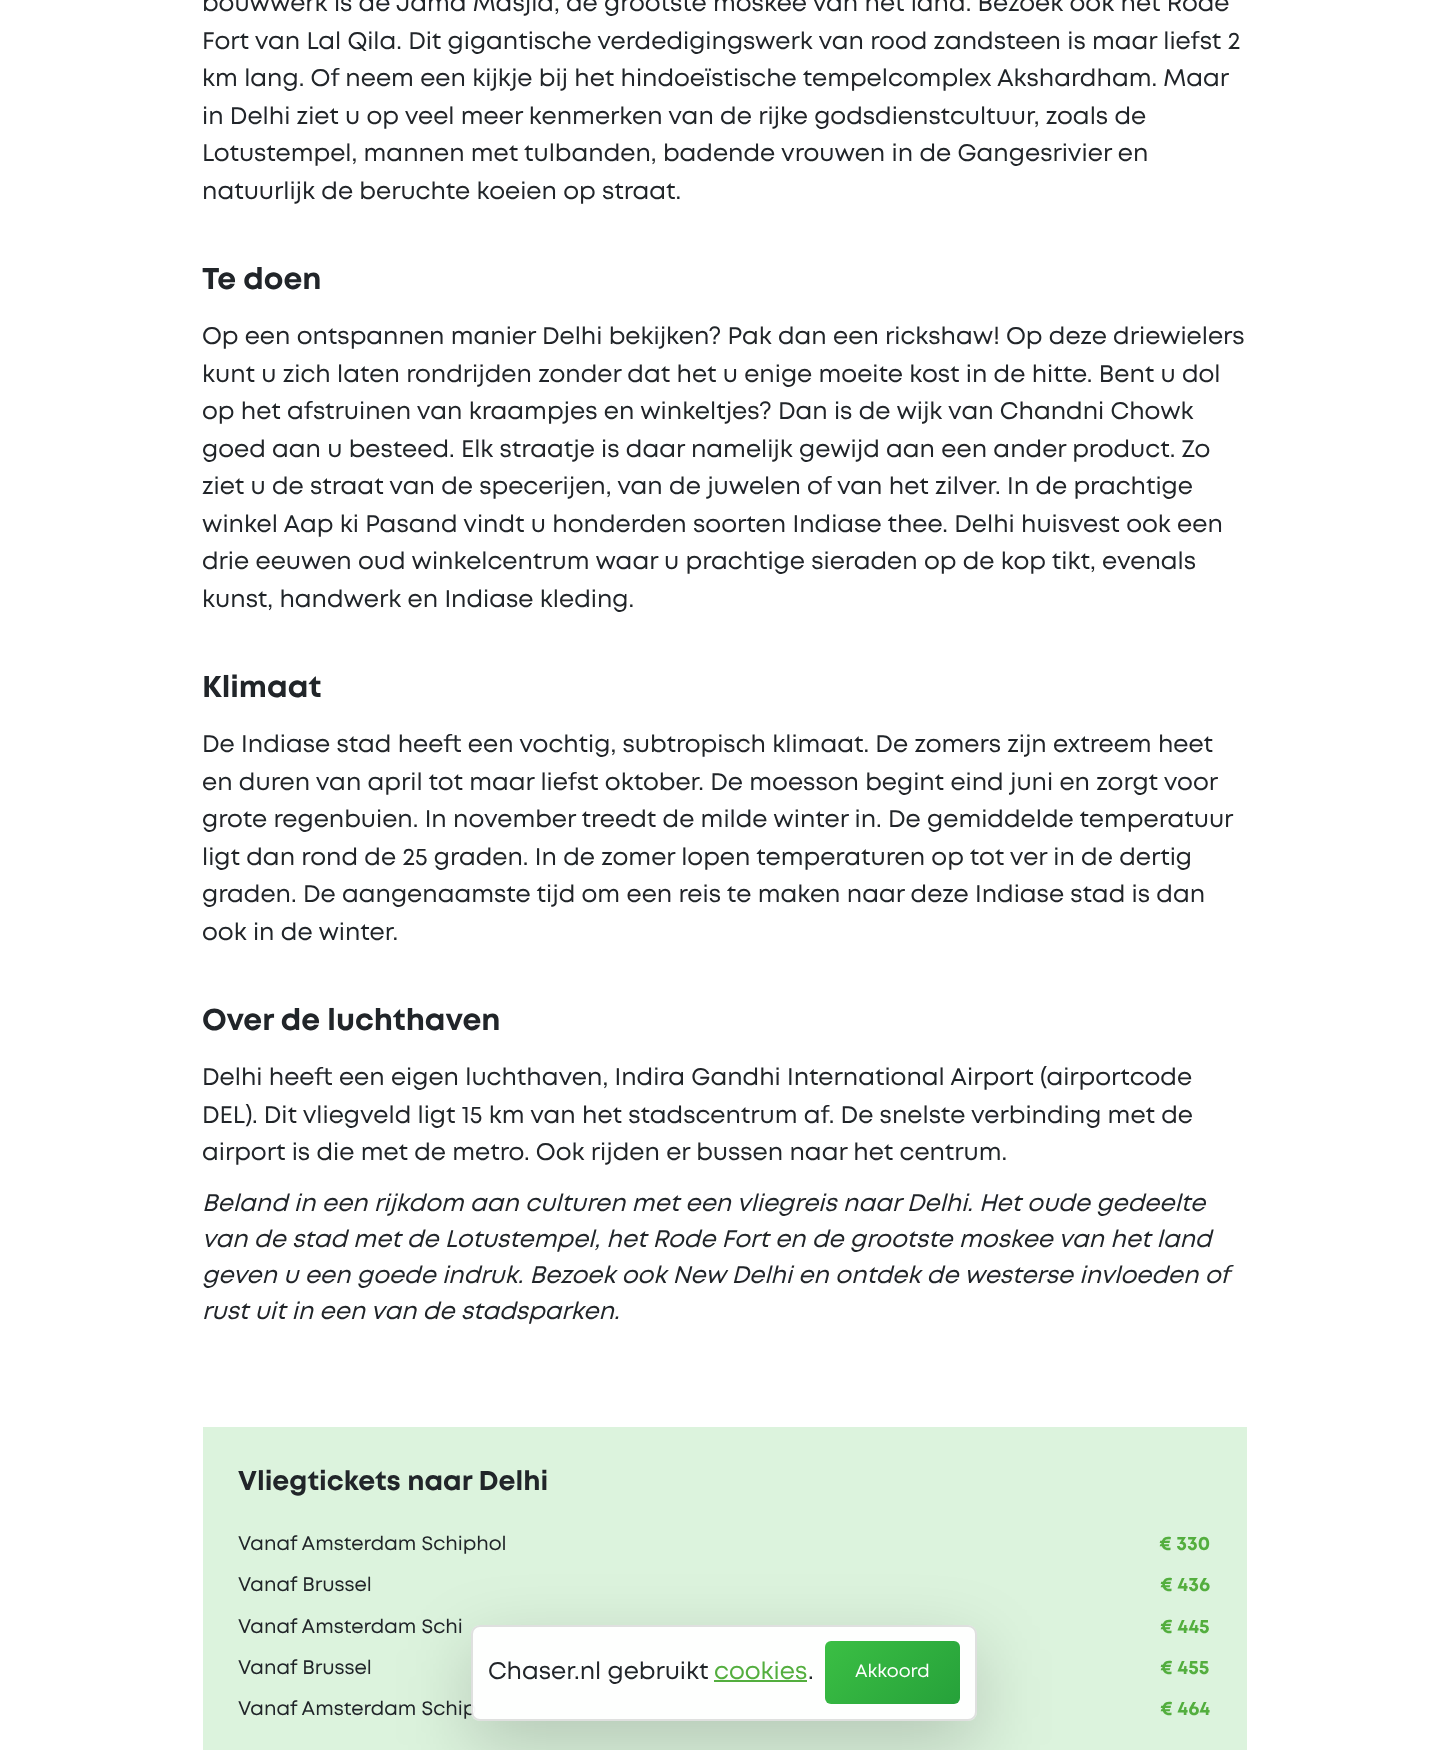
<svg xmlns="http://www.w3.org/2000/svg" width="1447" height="1750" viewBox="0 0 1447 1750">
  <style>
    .t1 { font: 24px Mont; fill: #212529; }
    .t2 { font: bold 30px Mont; fill: #212529; }
    .t3 { font: italic 24px Mont; fill: #212529; }
    .t4 { font: bold 27px Mont; fill: #212529; }
    .t5 { font: 19.5px Mont; fill: #212529; }
    .t6 { font: bold 19.5px Mont; fill: #53ae3e; }
    .t7 { font: 24px Mont; fill: #53ae3e; }
    .t8 { font: 18px Mont; fill: #fff; }
  </style>
  <defs>
    <clipPath id="clip1"><path d="M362 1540H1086V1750H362ZM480 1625H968C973 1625 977 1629 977 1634V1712C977 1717 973 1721 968 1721H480C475 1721 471 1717 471 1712V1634C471 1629 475 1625 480 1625Z" clip-rule="evenodd"/></clipPath>
    <linearGradient id="g1" gradientUnits="userSpaceOnUse" x1="942" y1="1722" x2="843" y2="1623"><stop offset="0" stop-color="#26a13a"/><stop offset="1" stop-color="#3bbf44"/></linearGradient>
  </defs>
  <rect width="100%" height="100%" fill="#fff"/>
  <text x="202" y="11" class="t1">bouwwerk is de Jama Masjid, de grootste moskee van het land. Bezoek ook het Rode</text>
  <text x="202" y="49" class="t1">Fort van Lal Qila. Dit gigantische verdedigingswerk van rood zandsteen is maar liefst 2</text>
  <text x="202" y="86" class="t1">km lang. Of neem een kijkje bij het hindoeïstische tempelcomplex Akshardham. Maar</text>
  <text x="202" y="124" class="t1">in Delhi ziet u op veel meer kenmerken van de rijke godsdienstcultuur, zoals de</text>
  <text x="202" y="161" class="t1">Lotustempel, mannen met tulbanden, badende vrouwen in de Gangesrivier en</text>
  <text x="202" y="199" class="t1">natuurlijk de beruchte koeien op straat.</text>
  <text x="202" y="289" class="t2">Te doen</text>
  <text x="202" y="344" class="t1">Op een ontspannen manier Delhi bekijken? Pak dan een rickshaw! Op deze driewielers</text>
  <text x="202" y="382" class="t1">kunt u zich laten rondrijden zonder dat het u enige moeite kost in de hitte. Bent u dol</text>
  <text x="202" y="419" class="t1">op het afstruinen van kraampjes en winkeltjes? Dan is de wijk van Chandni Chowk</text>
  <text x="202" y="457" class="t1">goed aan u besteed. Elk straatje is daar namelijk gewijd aan een ander product. Zo</text>
  <text x="202" y="494" class="t1">ziet u de straat van de specerijen, van de juwelen of van het zilver. In de prachtige</text>
  <text x="202" y="532" class="t1">winkel Aap ki Pasand vindt u honderden soorten Indiase thee. Delhi huisvest ook een</text>
  <text x="202" y="569" class="t1">drie eeuwen oud winkelcentrum waar u prachtige sieraden op de kop tikt, evenals</text>
  <text x="202" y="607" class="t1">kunst, handwerk en Indiase kleding.</text>
  <text x="202" y="697" class="t2">Klimaat</text>
  <text x="202" y="752" class="t1">De Indiase stad heeft een vochtig, subtropisch klimaat. De zomers zijn extreem heet</text>
  <text x="202" y="790" class="t1">en duren van april tot maar liefst oktober. De moesson begint eind juni en zorgt voor</text>
  <text x="202" y="827" class="t1">grote regenbuien. In november treedt de milde winter in. De gemiddelde temperatuur</text>
  <text x="202" y="865" class="t1">ligt dan rond de 25 graden. In de zomer lopen temperaturen op tot ver in de dertig</text>
  <text x="202" y="902" class="t1">graden. De aangenaamste tijd om een reis te maken naar deze Indiase stad is dan</text>
  <text x="202" y="940" class="t1">ook in de winter.</text>
  <text x="202" y="1030" class="t2">Over de luchthaven</text>
  <text x="202" y="1085" class="t1">Delhi heeft een eigen luchthaven, Indira Gandhi International Airport (airportcode</text>
  <text x="202" y="1123" class="t1">DEL). Dit vliegveld ligt 15 km van het stadscentrum af. De snelste verbinding met de</text>
  <text x="202" y="1160" class="t1">airport is die met de metro. Ook rijden er bussen naar het centrum.</text>
  <text x="202" y="1211" class="t3">Beland in een rijkdom aan culturen met een vliegreis naar Delhi. Het oude gedeelte</text>
  <text x="202" y="1247" class="t3">van de stad met de Lotustempel, het Rode Fort en de grootste moskee van het land</text>
  <text x="202" y="1283" class="t3">geven u een goede indruk. Bezoek ook New Delhi en ontdek de westerse invloeden of</text>
  <text x="202" y="1319" class="t3">rust uit in een van de stadsparken.</text>
  <rect x="203" y="1427" width="1044" height="323" fill="#dcf3dd"/>
  <text x="238" y="1490" class="t4">Vliegtickets naar Delhi</text>
  <text x="238" y="1550" class="t5">Vanaf Amsterdam Schiphol</text>
  <text x="1159" y="1550" class="t6">€ 330</text>
  <text x="238" y="1591" class="t5">Vanaf Brussel</text>
  <text x="1160" y="1591" class="t6">€ 436</text>
  <text x="238" y="1633" class="t5">Vanaf Amsterdam Schi</text>
  <text x="1160" y="1633" class="t6">€ 445</text>
  <text x="238" y="1674" class="t5">Vanaf Brussel</text>
  <text x="1160" y="1674" class="t6">€ 455</text>
  <text x="238" y="1715" class="t5">Vanaf Amsterdam Schip</text>
  <text x="1160" y="1715" class="t6">€ 464</text>
  <g clip-path="url(#clip1)">
    <rect x="471" y="1649" width="506" height="96" rx="9" fill="#0000002e" filter="blur(36px)"/>
  </g>
  <rect x="471" y="1625" width="506" height="96" rx="9" fill="#fffffff7"/>
  <rect x="472" y="1626" width="504" height="94" rx="8" fill="none" stroke="#0000001f" stroke-width="2"/>
  <text x="488" y="1679" class="t1">Chaser.nl gebruikt</text>
  <text x="714" y="1679" class="t7">cookies</text>
  <rect x="714" y="1680" width="93" height="2" fill="#53ae3e"/>
  <text x="808" y="1679" class="t1">.</text>
  <rect x="825" y="1641" width="135" height="63" rx="6" fill="url(#g1)"/>
  <text x="855" y="1677" class="t8">Akkoord</text>
</svg>
